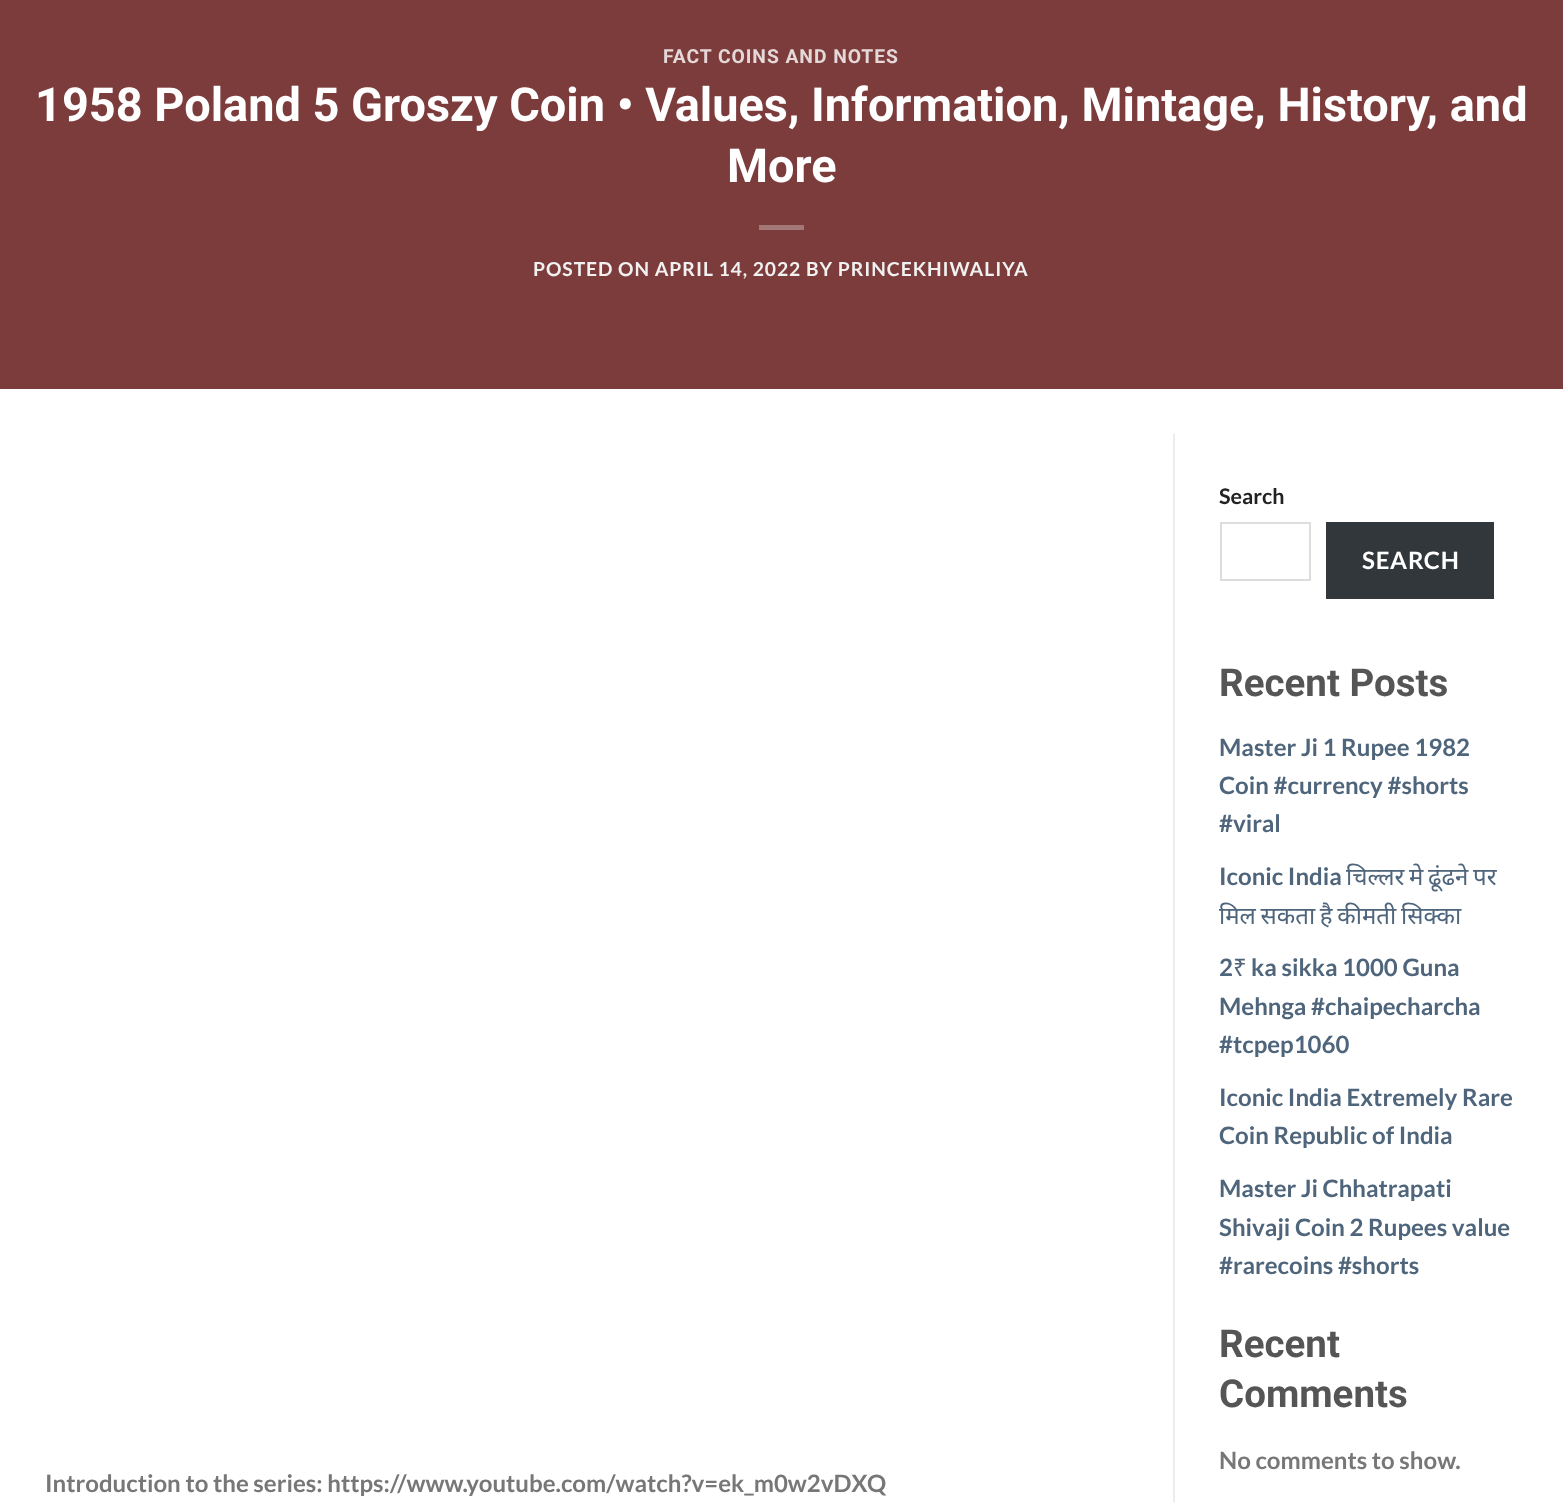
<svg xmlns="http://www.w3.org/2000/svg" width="1563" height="1502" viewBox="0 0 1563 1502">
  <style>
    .t1 { font: bold 19.3px Roboto; letter-spacing: 0.95px; fill: #e5d8d8; }
    .t2 { font: bold 46.9px Roboto; fill: #fff; }
    .t3 { font: bold 19.3px Lato; letter-spacing: 0.95px; fill: #f1f1f1; }
    .t4 { font: bold 21.5px Lato; fill: #222; }
    .t5 { font: bold 24px Lato; letter-spacing: 0.75px; fill: #fff; }
    .t6 { font: bold 38.5px Roboto; fill: #555; }
    .t7 { font: bold 24px Lato; fill: #4e657b; }
    .t8 { font: 24px Noto Sans; fill: #4e657b; }
    .t9 { font: bold 24px Lato; fill: #777; }
  </style>
  <rect width="100%" height="100%" fill="#fff"/>
  <rect x="0" y="0" width="1563" height="389" fill="#7d3c3c"/>
  <text x="663" y="63" class="t1">FACT COINS AND NOTES</text>
  <text x="35" y="121" class="t2">1958 Poland 5 Groszy Coin • Values, Information, Mintage, History, and</text>
  <text x="727" y="182" class="t2">More</text>
  <rect x="759" y="225" width="45" height="5" fill="#a47777"/>
  <text x="533" y="276" class="t3">POSTED ON APRIL 14, 2022 BY PRINCEKHIWALIYA</text>
  <rect x="1173" y="434" width="2" height="1068" fill="#ececec"/>
  <text x="1219" y="504" class="t4">Search</text>
  <rect x="1221" y="523" width="89" height="57" fill="none" stroke="#ddd" stroke-width="2"/>
  <rect x="1326" y="522" width="168" height="77" fill="#32373c"/>
  <text x="1362" y="569" class="t5">SEARCH</text>
  <text x="1219" y="696" class="t6">Recent Posts</text>
  <text x="1219" y="756" class="t7">Master Ji 1 Rupee 1982</text>
  <text x="1219" y="794" class="t7">Coin #currency #shorts</text>
  <text x="1219" y="832" class="t7">#viral</text>
  <text x="1219" y="885" class="t7">Iconic India</text>
  <text x="1346" y="885" class="t8">चिल्लर</text>
  <text x="1409" y="885" class="t8">मे</text>
  <text x="1428" y="885" class="t8">ढूंढने</text>
  <text x="1473" y="885" class="t8">पर</text>
  <text x="1219" y="924" word-spacing="-1.5" class="t8">मिल सकता है कीमती सिक्का</text>
  <text x="1219" y="976" class="t7">2</text>
  <text x="1233" y="976" class="t8">₹</text>
  <text x="1251" y="976" class="t7">ka sikka 1000 Guna</text>
  <text x="1219" y="1015" class="t7">Mehnga #chaipecharcha</text>
  <text x="1219" y="1053" class="t7">#tcpep1060</text>
  <text x="1219" y="1106" class="t7">Iconic India Extremely Rare</text>
  <text x="1219" y="1144" class="t7">Coin Republic of India</text>
  <text x="1219" y="1197" class="t7">Master Ji Chhatrapati</text>
  <text x="1219" y="1236" class="t7">Shivaji Coin 2 Rupees value</text>
  <text x="1219" y="1274" class="t7">#rarecoins #shorts</text>
  <text x="1219" y="1357" class="t6">Recent</text>
  <text x="1219" y="1407" class="t6">Comments</text>
  <text x="1219" y="1469" class="t9">No comments to show.</text>
  <text x="45" y="1492" class="t9">Introduction to the series: https://www.youtube.com/watch?v=ek_m0w2vDXQ</text>
</svg>
